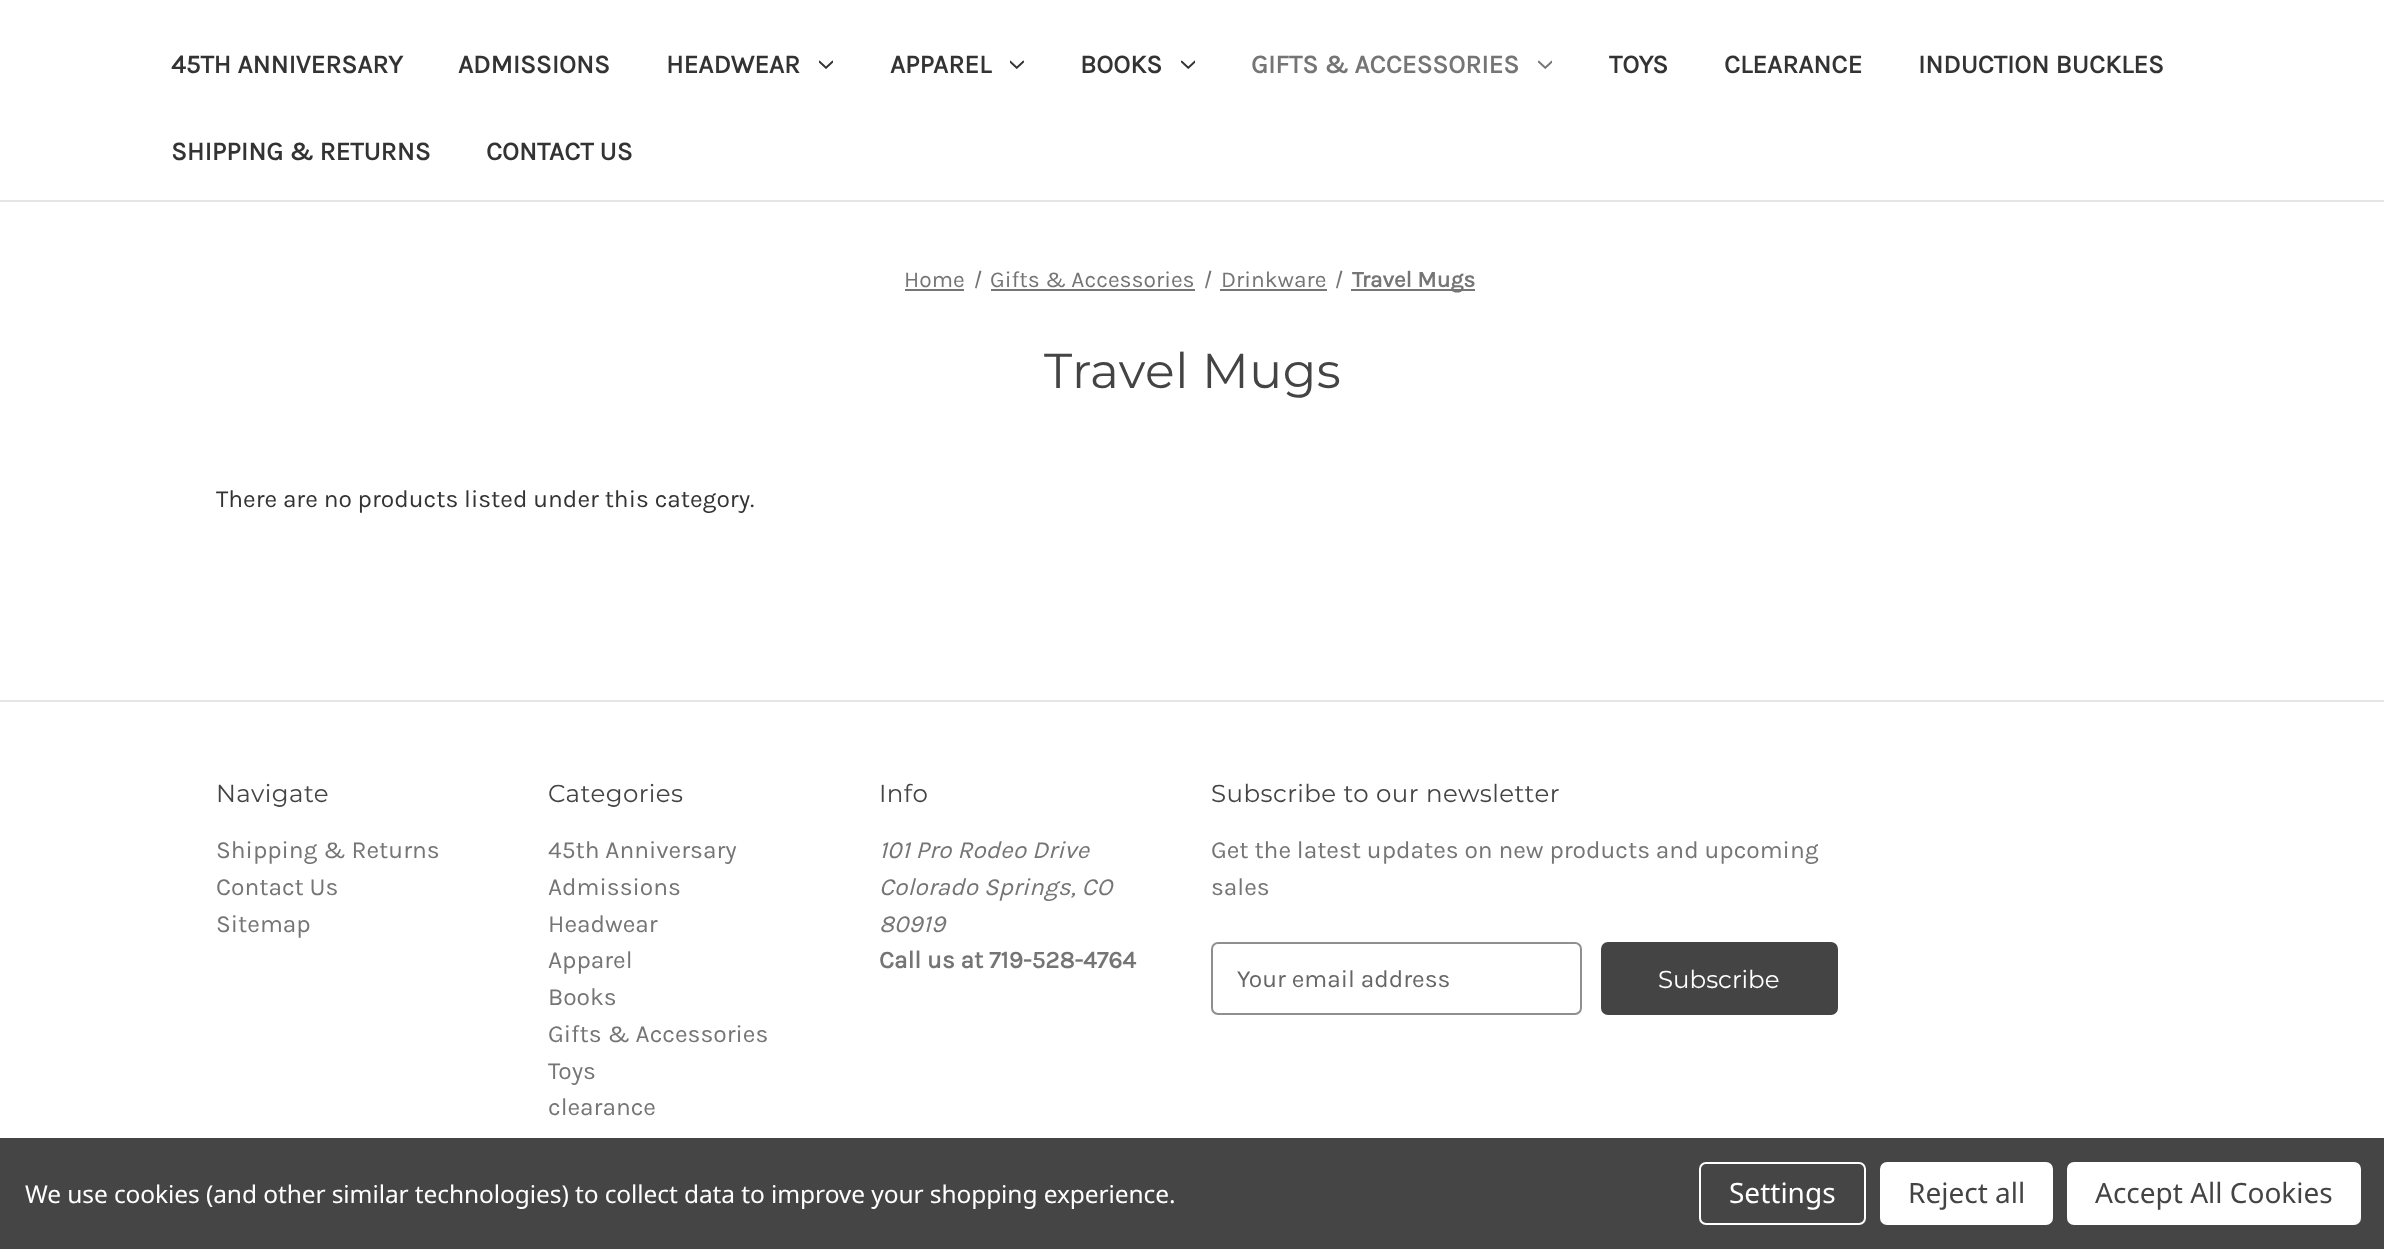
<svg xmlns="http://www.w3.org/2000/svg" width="2384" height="1249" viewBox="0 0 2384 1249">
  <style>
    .t1 { font: bold 26.25px Karla; fill: #333; }
    .t2 { font: bold 26.25px Karla; fill: #757575; }
    .t3 { font: 22.75px Karla; fill: #757575; }
    .t4 { font: bold 22.75px Karla; fill: #757575; }
    .t5 { font: 49px Montserrat; letter-spacing: 0.45px; fill: #444; }
    .t6 { font: 24.5px Karla; fill: #333; }
    .t7 { font: 24.5px Montserrat; letter-spacing: 0.45px; fill: #444; }
    .t8 { font: 24.5px Karla; fill: #757575; }
    .t9 { font: italic 24.5px Karla; fill: #757575; }
    .t10 { font: bold 24.5px Karla; fill: #757575; }
    .t11 { font: 24.5px Karla; fill: #666; }
    .t12 { font: 24.5px Montserrat; fill: #fff; }
    .t13 { font: 24.5px Noto Sans; letter-spacing: -0.09px; fill: #fff; }
    .t14 { font: 28px Noto Sans; fill: #fff; }
    .t15 { font: 28px Noto Sans; fill: #444; }
  </style>
  <rect width="100%" height="100%" fill="#fff"/>
  <rect x="0" y="200" width="2384" height="2" fill="#e5e5e5"/>
  <text x="171" y="73" class="t1">45TH ANNIVERSARY</text>
  <text x="458" y="73" class="t1">ADMISSIONS</text>
  <text x="666" y="73" class="t1">HEADWEAR</text>
  <image x="819" y="60" width="14" height="9" href="images/1.png"/>
  <text x="890" y="73" class="t1">APPAREL</text>
  <image x="1010" y="60" width="14" height="9" href="images/2.png"/>
  <text x="1080" y="73" class="t1">BOOKS</text>
  <image x="1181" y="60" width="14" height="9" href="images/3.png"/>
  <text x="1251" y="73" class="t2">GIFTS &amp; ACCESSORIES</text>
  <image x="1538" y="60" width="14" height="9" href="images/4.png"/>
  <text x="1609" y="73" class="t1">TOYS</text>
  <text x="1724" y="73" class="t1">CLEARANCE</text>
  <text x="1918" y="73" class="t1">INDUCTION BUCKLES</text>
  <text x="171" y="160" class="t1">SHIPPING &amp; RETURNS</text>
  <text x="486" y="160" class="t1">CONTACT US</text>
  <text x="904" y="287" class="t3">Home</text>
  <rect x="905" y="289" width="59" height="2" fill="#757575"/>
  <path d="M979.5 270.5L981.5 271L976.5 288.5L975 288Z" fill="#757575"/>
  <text x="990" y="287" class="t3">Gifts &amp; Accessories</text>
  <rect x="991" y="289" width="204" height="2" fill="#757575"/>
  <path d="M1209.5 270.5L1211.5 271L1206.5 288.5L1205 288Z" fill="#757575"/>
  <text x="1221" y="287" class="t3">Drinkware</text>
  <rect x="1220" y="289" width="107" height="2" fill="#757575"/>
  <path d="M1340.5 270.5L1342.5 271L1337.5 288.5L1336 288Z" fill="#757575"/>
  <rect x="1351" y="289" width="124" height="2" fill="#757575"/>
  <text x="1352" y="287" class="t4">Travel Mugs</text>
  <text x="1044" y="388" class="t5">Travel Mugs</text>
  <text x="216" y="507" class="t6">There are no products listed under this category.</text>
  <rect x="0" y="700" width="2384" height="2" fill="#e5e5e5"/>
  <text x="216" y="802" class="t7">Navigate</text>
  <text x="216" y="858" class="t8">Shipping &amp; Returns</text>
  <text x="216" y="895" class="t8">Contact Us</text>
  <text x="216" y="932" class="t8">Sitemap</text>
  <text x="548" y="802" class="t7">Categories</text>
  <text x="548" y="858" class="t8">45th Anniversary</text>
  <text x="548" y="895" class="t8">Admissions</text>
  <text x="548" y="932" class="t8">Headwear</text>
  <text x="548" y="968" class="t8">Apparel</text>
  <text x="548" y="1005" class="t8">Books</text>
  <text x="548" y="1042" class="t8">Gifts &amp; Accessories</text>
  <text x="548" y="1079" class="t8">Toys</text>
  <text x="548" y="1115" class="t8">clearance</text>
  <text x="879" y="802" class="t7">Info</text>
  <text x="879" y="858" class="t9">101 Pro Rodeo Drive</text>
  <text x="879" y="895" class="t9">Colorado Springs, CO</text>
  <text x="879" y="932" class="t9">80919</text>
  <text x="879" y="968" class="t10">Call us at 719-528-4764</text>
  <text x="1211" y="802" class="t7">Subscribe to our newsletter</text>
  <text x="1211" y="858" class="t8">Get the latest updates on new products and upcoming</text>
  <text x="1211" y="895" class="t8">sales</text>
  <rect x="1212" y="943" width="369" height="71" rx="6" fill="none" stroke="#8f8f8f" stroke-width="2"/>
  <text x="1237" y="987" class="t11">Your email address</text>
  <rect x="1602" y="943" width="235" height="71" rx="6" fill="#444" stroke="#444" stroke-width="2"/>
  <text x="1658" y="988" class="t12">Subscribe</text>
  <rect x="0" y="1138" width="2384" height="111" fill="#454545"/>
  <text x="25" y="1203" class="t13">We use cookies (and other similar technologies) to collect data to improve your shopping experience.</text>
  <rect x="1700" y="1163" width="165" height="61" rx="6" fill="none" stroke="#fff" stroke-width="2"/>
  <text x="1729" y="1203" class="t14">Settings</text>
  <rect x="1880" y="1162" width="173" height="63" rx="7" fill="#fff"/>
  <text x="1908" y="1203" class="t15">Reject all</text>
  <rect x="2067" y="1162" width="294" height="63" rx="7" fill="#fff"/>
  <text x="2095" y="1203" class="t15">Accept All Cookies</text>
</svg>
